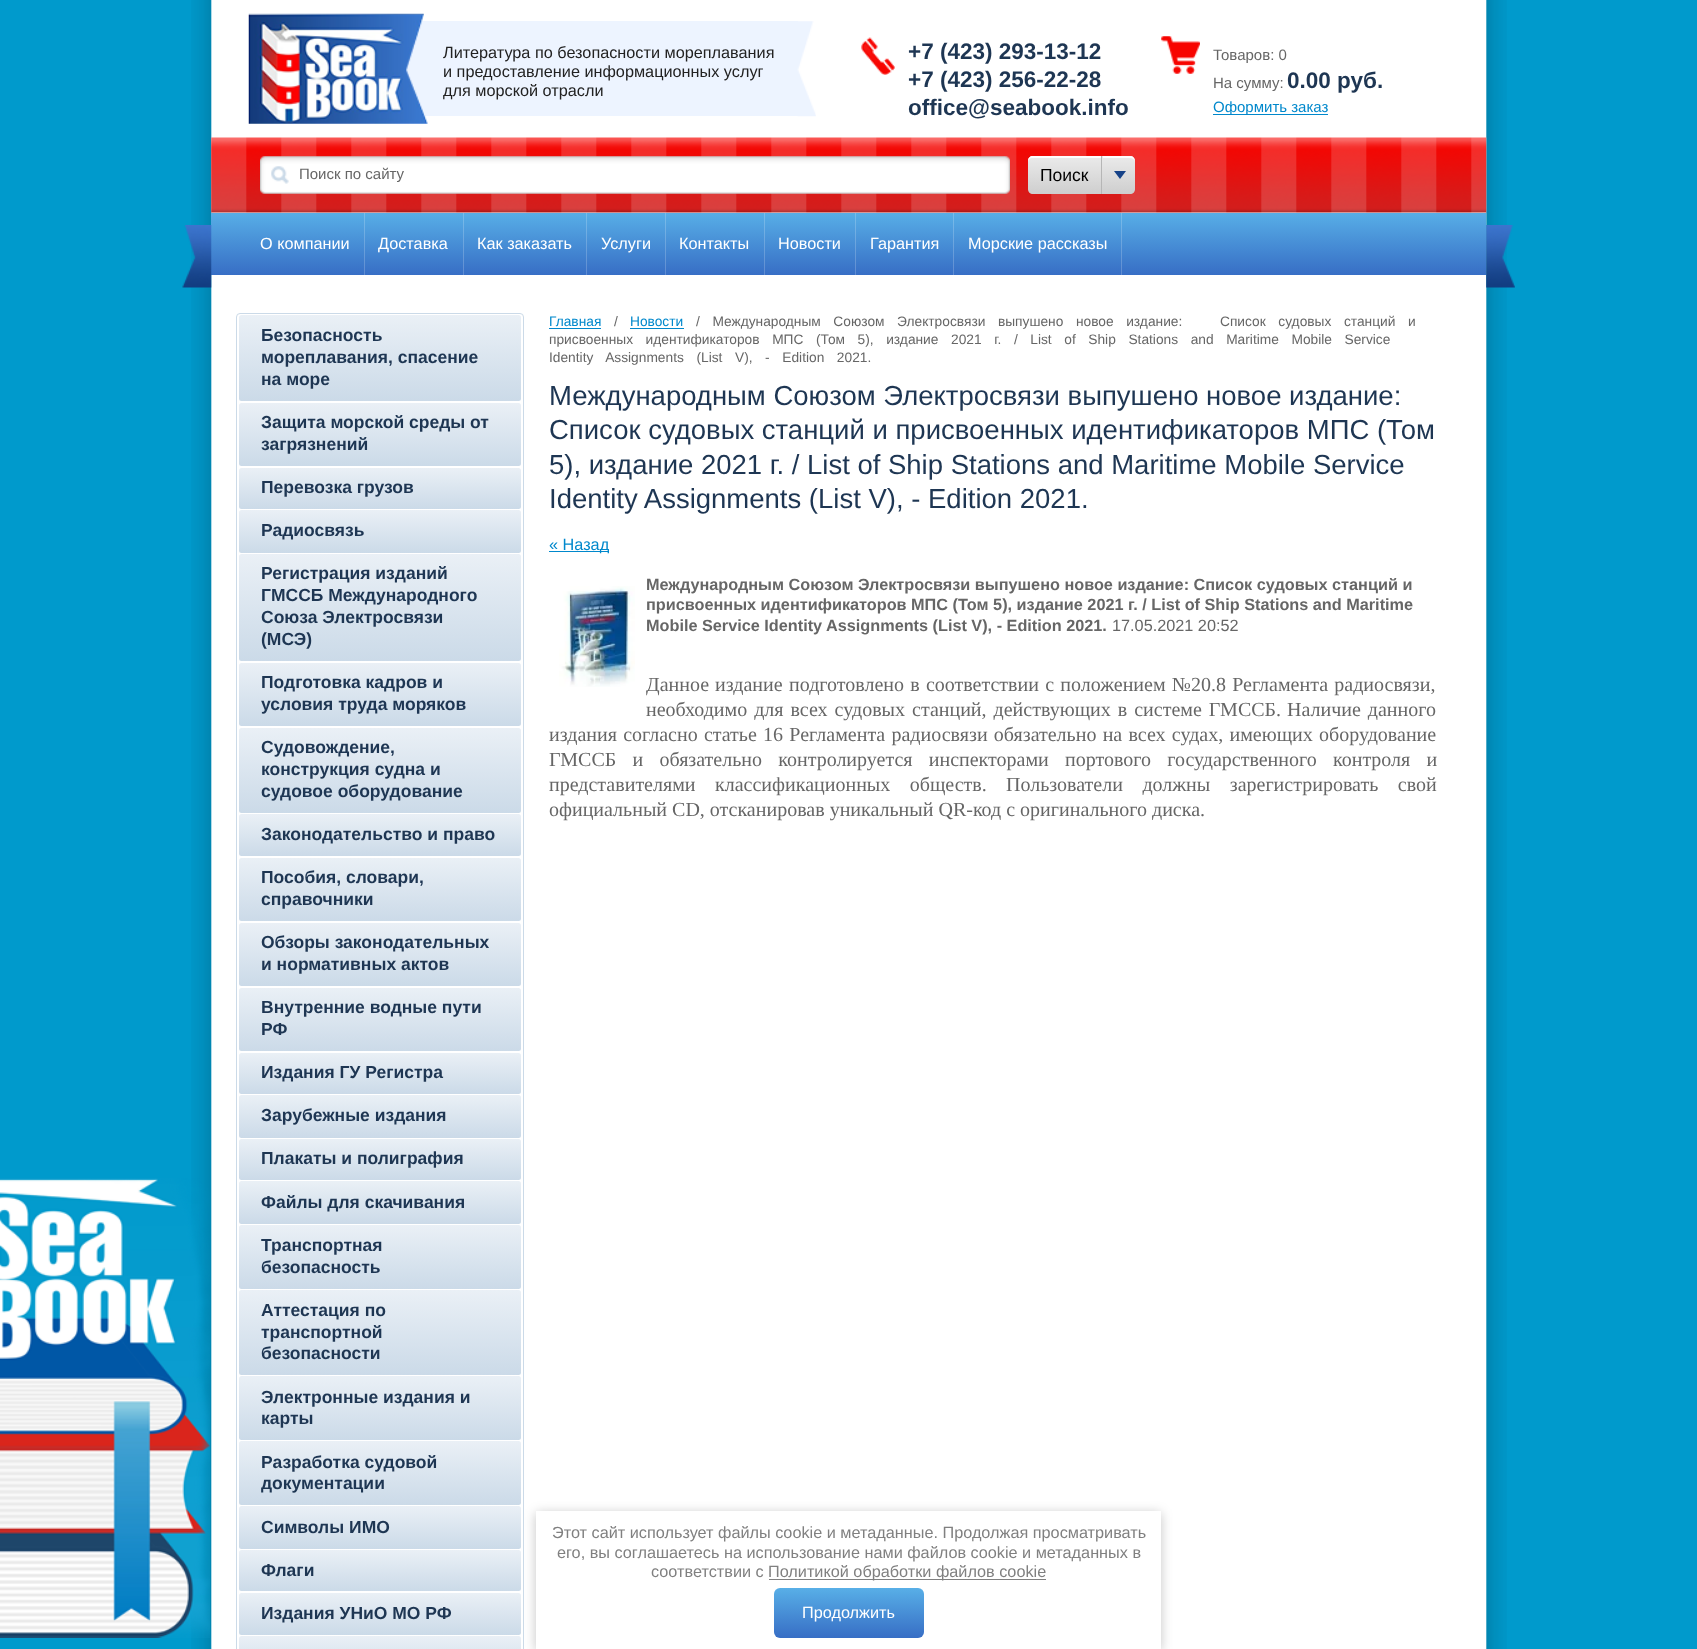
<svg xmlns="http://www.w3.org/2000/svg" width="1697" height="1649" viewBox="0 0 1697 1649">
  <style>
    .t1 { font: 16.25px Liberation Sans; fill: #222; }
    .t2 { font: bold 22.5px Liberation Sans; fill: #1e3653; }
    .t3 { font: 15px Liberation Sans; fill: #666; }
    .t4 { font: 15px Liberation Sans; fill: #08c; }
    .t5 { font: 17.5px Liberation Sans; fill: #000; }
    .t6 { font: 16.25px Liberation Sans; fill: #fff; }
    .t7 { font: bold 17.5px Liberation Sans; fill: #1e3653; }
    .t8 { font: 13.75px Liberation Sans; fill: #08c; }
    .t9 { font: 13.75px Liberation Sans; fill: #666; }
    .t10 { font: 27.5px Liberation Sans; fill: #1e3653; }
    .t11 { font: 16.25px Liberation Sans; fill: #08c; }
    .t12 { font: bold 16.25px Liberation Sans; fill: #666; }
    .t13 { font: 16.25px Liberation Sans; fill: #666; }
    .t14 { font: 20px Liberation Serif; fill: #666; }
    .t15 { font: 16.25px Liberation Sans; fill: #808080; }
  </style>
  <defs>
    <linearGradient id="g1" gradientUnits="userSpaceOnUse" x1="1064" y1="156" x2="1064" y2="194"><stop offset="0" stop-color="#ebebeb"/><stop offset="1" stop-color="#cecece"/></linearGradient>
    <linearGradient id="g2" gradientUnits="userSpaceOnUse" x1="1119" y1="156" x2="1119" y2="194"><stop offset="0" stop-color="#ebebeb"/><stop offset="1" stop-color="#cecece"/></linearGradient>
    <linearGradient id="g3" gradientUnits="userSpaceOnUse" x1="849" y1="212" x2="849" y2="275"><stop offset="0" stop-color="#58afe7"/><stop offset="1" stop-color="#376ec5"/></linearGradient>
    <linearGradient id="g4" gradientUnits="userSpaceOnUse" x1="380" y1="315" x2="380" y2="401"><stop offset="0" stop-color="#eaf0f6"/><stop offset="1" stop-color="#cbdae8"/></linearGradient>
    <linearGradient id="g5" gradientUnits="userSpaceOnUse" x1="380" y1="403" x2="380" y2="466"><stop offset="0" stop-color="#eaf0f6"/><stop offset="1" stop-color="#cbdae8"/></linearGradient>
    <linearGradient id="g6" gradientUnits="userSpaceOnUse" x1="380" y1="468" x2="380" y2="509"><stop offset="0" stop-color="#eaf0f6"/><stop offset="1" stop-color="#cbdae8"/></linearGradient>
    <linearGradient id="g7" gradientUnits="userSpaceOnUse" x1="380" y1="510" x2="380" y2="553"><stop offset="0" stop-color="#eaf0f6"/><stop offset="1" stop-color="#cbdae8"/></linearGradient>
    <linearGradient id="g8" gradientUnits="userSpaceOnUse" x1="380" y1="554" x2="380" y2="661"><stop offset="0" stop-color="#eaf0f6"/><stop offset="1" stop-color="#cbdae8"/></linearGradient>
    <linearGradient id="g9" gradientUnits="userSpaceOnUse" x1="380" y1="663" x2="380" y2="726"><stop offset="0" stop-color="#eaf0f6"/><stop offset="1" stop-color="#cbdae8"/></linearGradient>
    <linearGradient id="g10" gradientUnits="userSpaceOnUse" x1="380" y1="728" x2="380" y2="813"><stop offset="0" stop-color="#eaf0f6"/><stop offset="1" stop-color="#cbdae8"/></linearGradient>
    <linearGradient id="g11" gradientUnits="userSpaceOnUse" x1="380" y1="814" x2="380" y2="856"><stop offset="0" stop-color="#eaf0f6"/><stop offset="1" stop-color="#cbdae8"/></linearGradient>
    <linearGradient id="g12" gradientUnits="userSpaceOnUse" x1="380" y1="858" x2="380" y2="921"><stop offset="0" stop-color="#eaf0f6"/><stop offset="1" stop-color="#cbdae8"/></linearGradient>
    <linearGradient id="g13" gradientUnits="userSpaceOnUse" x1="380" y1="923" x2="380" y2="986"><stop offset="0" stop-color="#eaf0f6"/><stop offset="1" stop-color="#cbdae8"/></linearGradient>
    <linearGradient id="g14" gradientUnits="userSpaceOnUse" x1="380" y1="988" x2="380" y2="1051"><stop offset="0" stop-color="#eaf0f6"/><stop offset="1" stop-color="#cbdae8"/></linearGradient>
    <linearGradient id="g15" gradientUnits="userSpaceOnUse" x1="380" y1="1053" x2="380" y2="1094"><stop offset="0" stop-color="#eaf0f6"/><stop offset="1" stop-color="#cbdae8"/></linearGradient>
    <linearGradient id="g16" gradientUnits="userSpaceOnUse" x1="380" y1="1095" x2="380" y2="1138"><stop offset="0" stop-color="#eaf0f6"/><stop offset="1" stop-color="#cbdae8"/></linearGradient>
    <linearGradient id="g17" gradientUnits="userSpaceOnUse" x1="380" y1="1139" x2="380" y2="1180"><stop offset="0" stop-color="#eaf0f6"/><stop offset="1" stop-color="#cbdae8"/></linearGradient>
    <linearGradient id="g18" gradientUnits="userSpaceOnUse" x1="380" y1="1181" x2="380" y2="1224"><stop offset="0" stop-color="#eaf0f6"/><stop offset="1" stop-color="#cbdae8"/></linearGradient>
    <linearGradient id="g19" gradientUnits="userSpaceOnUse" x1="380" y1="1225" x2="380" y2="1289"><stop offset="0" stop-color="#eaf0f6"/><stop offset="1" stop-color="#cbdae8"/></linearGradient>
    <linearGradient id="g20" gradientUnits="userSpaceOnUse" x1="380" y1="1290" x2="380" y2="1375"><stop offset="0" stop-color="#eaf0f6"/><stop offset="1" stop-color="#cbdae8"/></linearGradient>
    <linearGradient id="g21" gradientUnits="userSpaceOnUse" x1="380" y1="1376" x2="380" y2="1440"><stop offset="0" stop-color="#eaf0f6"/><stop offset="1" stop-color="#cbdae8"/></linearGradient>
    <linearGradient id="g22" gradientUnits="userSpaceOnUse" x1="380" y1="1441" x2="380" y2="1505"><stop offset="0" stop-color="#eaf0f6"/><stop offset="1" stop-color="#cbdae8"/></linearGradient>
    <linearGradient id="g23" gradientUnits="userSpaceOnUse" x1="380" y1="1506" x2="380" y2="1549"><stop offset="0" stop-color="#eaf0f6"/><stop offset="1" stop-color="#cbdae8"/></linearGradient>
    <linearGradient id="g24" gradientUnits="userSpaceOnUse" x1="380" y1="1550" x2="380" y2="1591"><stop offset="0" stop-color="#eaf0f6"/><stop offset="1" stop-color="#cbdae8"/></linearGradient>
    <linearGradient id="g25" gradientUnits="userSpaceOnUse" x1="380" y1="1593" x2="380" y2="1635"><stop offset="0" stop-color="#eaf0f6"/><stop offset="1" stop-color="#cbdae8"/></linearGradient>
    <linearGradient id="g26" gradientUnits="userSpaceOnUse" x1="380" y1="1636" x2="380" y2="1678"><stop offset="0" stop-color="#eaf0f6"/><stop offset="1" stop-color="#cbdae8"/></linearGradient>
    <linearGradient id="g27" gradientUnits="userSpaceOnUse" x1="849" y1="1588" x2="849" y2="1638"><stop offset="0" stop-color="#58afe7"/><stop offset="1" stop-color="#376ec5"/></linearGradient>
  </defs>
  <rect width="100%" height="100%" fill="#009acc"/>
  <image x="191" y="0" width="1316" height="1649" href="images/1.png"/>
  <image x="0" y="1178" width="210" height="460" href="images/2.png"/>
  <rect x="406" y="21" width="392" height="95" fill="#edf4ff"/>
  <image x="248" y="13" width="180" height="111" href="images/3.png"/>
  <image x="797" y="21" width="19" height="96" href="images/4.png"/>
  <text x="443" y="58" class="t1">Литература по безопасности мореплавания</text>
  <text x="443" y="77" class="t1">и предоставление информационных услуг</text>
  <text x="443" y="96" class="t1">для морской отрасли</text>
  <image x="861" y="37" width="34" height="38" href="images/5.png"/>
  <text x="908" y="59" class="t2">+7 (423) 293-13-12</text>
  <text x="908" y="87" class="t2">+7 (423) 256-22-28</text>
  <text x="908" y="115" class="t2">office@seabook.info</text>
  <image x="1161" y="36" width="39" height="38" href="images/6.png"/>
  <text x="1213" y="60" class="t3">Товаров: 0</text>
  <text x="1213" y="88" class="t3">На сумму:</text>
  <text x="1287" y="88" class="t2">0.00 руб.</text>
  <rect x="1213" y="114" width="115" height="1" fill="#08c"/>
  <text x="1213" y="112" class="t4">Оформить заказ</text>
  <image x="211" y="137" width="1276" height="76" href="images/7.png"/>
  <image x="260" y="156" width="750" height="38" href="images/8.png"/>
  <text x="299" y="179" class="t3">Поиск по сайту</text>
  <path d="M1033 156H1101V194H1033C1030 194 1028 192 1028 189V161C1028 158 1030 156 1033 156Z" fill="url(#g1)"/>
  <path d="M1032 158H1101V156H1033C1030 156 1028 158 1028 161V162C1028 160 1030 158 1032 158Z" fill="#fffefe"/>
  <text x="1040" y="181" class="t5">Поиск</text>
  <path d="M1101 156H1130C1133 156 1135 158 1135 161V189C1135 192 1133 194 1130 194H1101Z" fill="url(#g2)"/>
  <path d="M1103 156V158H1130C1133 158 1135 160 1135 162C1135 159 1133.5 156 1130 156Z" fill="#fffefe"/>
  <rect x="1101" y="156" width="1" height="38" fill="#b6b6b6"/>
  <path d="M1114 171H1126L1120 179Z" fill="#164288"/>
  <rect x="211" y="213" width="1275" height="62" fill="url(#g3)"/>
  <image x="182" y="225" width="30" height="63" href="images/9.png"/>
  <rect x="364" y="213" width="1" height="62" fill="#ffffff33"/>
  <text x="260" y="249" class="t6">О компании</text>
  <rect x="463" y="213" width="1" height="62" fill="#ffffff33"/>
  <text x="378" y="249" class="t6">Доставка</text>
  <rect x="586" y="213" width="1" height="62" fill="#ffffff33"/>
  <text x="477" y="249" class="t6">Как заказать</text>
  <rect x="665" y="213" width="1" height="62" fill="#ffffff33"/>
  <text x="601" y="249" class="t6">Услуги</text>
  <rect x="764" y="213" width="1" height="62" fill="#ffffff33"/>
  <text x="679" y="249" class="t6">Контакты</text>
  <rect x="855" y="213" width="1" height="62" fill="#ffffff33"/>
  <text x="778" y="249" class="t6">Новости</text>
  <rect x="953" y="213" width="1" height="62" fill="#ffffff33"/>
  <text x="870" y="249" class="t6">Гарантия</text>
  <rect x="1121" y="213" width="1" height="62" fill="#ffffff33"/>
  <text x="968" y="249" class="t6">Морские рассказы</text>
  <image x="1486" y="225" width="29" height="63" href="images/10.png"/>
  <rect x="236.5" y="313.5" width="287" height="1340" rx="3.5" fill="none" stroke="#cbdae8"/>
  <rect x="239" y="315" width="282" height="86" rx="2.5" fill="url(#g4)"/>
  <text x="261" y="341" class="t7">Безопасность</text>
  <text x="261" y="363" class="t7">мореплавания, спасение</text>
  <text x="261" y="385" class="t7">на море</text>
  <rect x="239" y="403" width="282" height="63" rx="2.5" fill="url(#g5)"/>
  <text x="261" y="428" class="t7">Защита морской среды от</text>
  <text x="261" y="450" class="t7">загрязнений</text>
  <rect x="239" y="468" width="282" height="41" rx="2.5" fill="url(#g6)"/>
  <text x="261" y="493" class="t7">Перевозка грузов</text>
  <rect x="239" y="510" width="282" height="43" rx="2.5" fill="url(#g7)"/>
  <text x="261" y="536" class="t7">Радиосвязь</text>
  <rect x="239" y="554" width="282" height="107" rx="2.5" fill="url(#g8)"/>
  <text x="261" y="579" class="t7">Регистрация изданий</text>
  <text x="261" y="601" class="t7">ГМССБ Международного</text>
  <text x="261" y="623" class="t7">Союза Электросвязи</text>
  <text x="261" y="645" class="t7">(МСЭ)</text>
  <rect x="239" y="663" width="282" height="63" rx="2.5" fill="url(#g9)"/>
  <text x="261" y="688" class="t7">Подготовка кадров и</text>
  <text x="261" y="710" class="t7">условия труда моряков</text>
  <rect x="239" y="728" width="282" height="85" rx="2.5" fill="url(#g10)"/>
  <text x="261" y="753" class="t7">Судовождение,</text>
  <text x="261" y="775" class="t7">конструкция судна и</text>
  <text x="261" y="797" class="t7">судовое оборудование</text>
  <rect x="239" y="814" width="282" height="42" rx="2.5" fill="url(#g11)"/>
  <text x="261" y="840" class="t7">Законодательство и право</text>
  <rect x="239" y="858" width="282" height="63" rx="2.5" fill="url(#g12)"/>
  <text x="261" y="883" class="t7">Пособия, словари,</text>
  <text x="261" y="905" class="t7">справочники</text>
  <rect x="239" y="923" width="282" height="63" rx="2.5" fill="url(#g13)"/>
  <text x="261" y="948" class="t7">Обзоры законодательных</text>
  <text x="261" y="970" class="t7">и нормативных актов</text>
  <rect x="239" y="988" width="282" height="63" rx="2.5" fill="url(#g14)"/>
  <text x="261" y="1013" class="t7">Внутренние водные пути</text>
  <text x="261" y="1035" class="t7">РФ</text>
  <rect x="239" y="1053" width="282" height="41" rx="2.5" fill="url(#g15)"/>
  <text x="261" y="1078" class="t7">Издания ГУ Регистра</text>
  <rect x="239" y="1095" width="282" height="43" rx="2.5" fill="url(#g16)"/>
  <text x="261" y="1121" class="t7">Зарубежные издания</text>
  <rect x="239" y="1139" width="282" height="41" rx="2.5" fill="url(#g17)"/>
  <text x="261" y="1164" class="t7">Плакаты и полиграфия</text>
  <rect x="239" y="1181" width="282" height="43" rx="2.5" fill="url(#g18)"/>
  <text x="261" y="1208" class="t7">Файлы для скачивания</text>
  <rect x="239" y="1225" width="282" height="64" rx="2.5" fill="url(#g19)"/>
  <text x="261" y="1251" class="t7">Транспортная</text>
  <text x="261" y="1273" class="t7">безопасность</text>
  <rect x="239" y="1290" width="282" height="85" rx="2.5" fill="url(#g20)"/>
  <text x="261" y="1316" class="t7">Аттестация по</text>
  <text x="261" y="1338" class="t7">транспортной</text>
  <text x="261" y="1359" class="t7">безопасности</text>
  <rect x="239" y="1376" width="282" height="64" rx="2.5" fill="url(#g21)"/>
  <text x="261" y="1403" class="t7">Электронные издания и</text>
  <text x="261" y="1424" class="t7">карты</text>
  <rect x="239" y="1441" width="282" height="64" rx="2.5" fill="url(#g22)"/>
  <text x="261" y="1468" class="t7">Разработка судовой</text>
  <text x="261" y="1489" class="t7">документации</text>
  <rect x="239" y="1506" width="282" height="43" rx="2.5" fill="url(#g23)"/>
  <text x="261" y="1533" class="t7">Символы ИМО</text>
  <rect x="239" y="1550" width="282" height="41" rx="2.5" fill="url(#g24)"/>
  <text x="261" y="1576" class="t7">Флаги</text>
  <rect x="239" y="1593" width="282" height="42" rx="2.5" fill="url(#g25)"/>
  <text x="261" y="1619" class="t7">Издания УНиО МО РФ</text>
  <rect x="239" y="1636" width="282" height="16" rx="2.5" fill="url(#g26)"/>
  <text x="549" y="326" class="t8">Главная</text>
  <rect x="549" y="328" width="52" height="1" fill="#08c"/>
  <text x="614" y="326" class="t9">/</text>
  <text x="630" y="326" class="t8">Новости</text>
  <rect x="630" y="328" width="54" height="1" fill="#08c"/>
  <text x="696" y="326" word-spacing="8.75" class="t9" xml:space="preserve">/ Международным Союзом Электросвязи выпушено новое издание:   Список судовых станций и</text>
  <text x="549" y="344" word-spacing="8.75" class="t9">присвоенных идентификаторов МПС (Том 5), издание 2021 г. / List of Ship Stations and Maritime Mobile Service</text>
  <text x="549" y="362" word-spacing="8.75" class="t9">Identity Assignments (List V), - Edition 2021.</text>
  <text x="549" y="405" class="t10">Международным Союзом Электросвязи выпушено новое издание:</text>
  <text x="549" y="439" class="t10">Список судовых станций и присвоенных идентификаторов МПС (Том</text>
  <text x="549" y="474" class="t10">5), издание 2021 г. / List of Ship Stations and Maritime Mobile Service</text>
  <text x="549" y="508" class="t10">Identity Assignments (List V), - Edition 2021.</text>
  <rect x="549" y="551" width="60" height="1" fill="#08c"/>
  <text x="549" y="550" class="t11">« Назад</text>
  <image x="559" y="586" width="76" height="101" href="images/11.png"/>
  <text x="646" y="590" class="t12">Международным Союзом Электросвязи выпушено новое издание: Список судовых станций и</text>
  <text x="646" y="610" class="t12">присвоенных идентификаторов МПС (Том 5), издание 2021 г. / List of Ship Stations and Maritime</text>
  <text x="646" y="631" class="t12">Mobile Service Identity Assignments (List V), - Edition 2021.</text>
  <text x="1112" y="631" class="t13">17.05.2021 20:52</text>
  <text x="646" y="691" word-spacing="1" class="t14">Данное издание</text>
  <text x="789" y="691" word-spacing="1.25" class="t14">подготовлено в соответствии с положением №20.8 Регламента радиосвязи,</text>
  <text x="646" y="716" word-spacing="2" class="t14">необходимо для всех судовых станций, действующих в системе ГМССБ.</text>
  <text x="1287" y="716" word-spacing="2" class="t14">Наличие данного</text>
  <text x="549" y="741" word-spacing="1.25" class="t14">издания согласно статье 16 Регламента радиосвязи обязательно на всех судах, имеющих оборудование</text>
  <text x="549" y="766" word-spacing="11.25" class="t14">ГМССБ и обязательно контролируется инспекторами портового государственного контроля и</text>
  <text x="549" y="791" word-spacing="14.5" class="t14">представителями классификационных обществ.</text>
  <text x="1006" y="791" word-spacing="14.5" class="t14">Пользователи должны зарегистрировать свой</text>
  <text x="549" y="816" class="t14">официальный CD, отсканировав уникальный QR-код с оригинального диска.</text>
  <rect x="536" y="1513" width="625" height="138" fill="#0000003b" filter="blur(6px)"/>
  <rect x="536" y="1511" width="625" height="138" fill="#fff"/>
  <text x="552" y="1538" class="t15">Этот сайт использует файлы cookie и метаданные. Продолжая просматривать</text>
  <text x="557" y="1558" class="t15">его, вы соглашаетесь на использование нами файлов cookie и метаданных в</text>
  <text x="651" y="1577" class="t15">соответствии с</text>
  <rect x="769" y="1579" width="277" height="1" fill="#808080"/>
  <text x="768" y="1577" class="t15">Политикой обработки файлов cookie</text>
  <rect x="774" y="1588" width="150" height="50" rx="6" fill="url(#g27)"/>
  <text x="802" y="1618" class="t6">Продолжить</text>
</svg>
